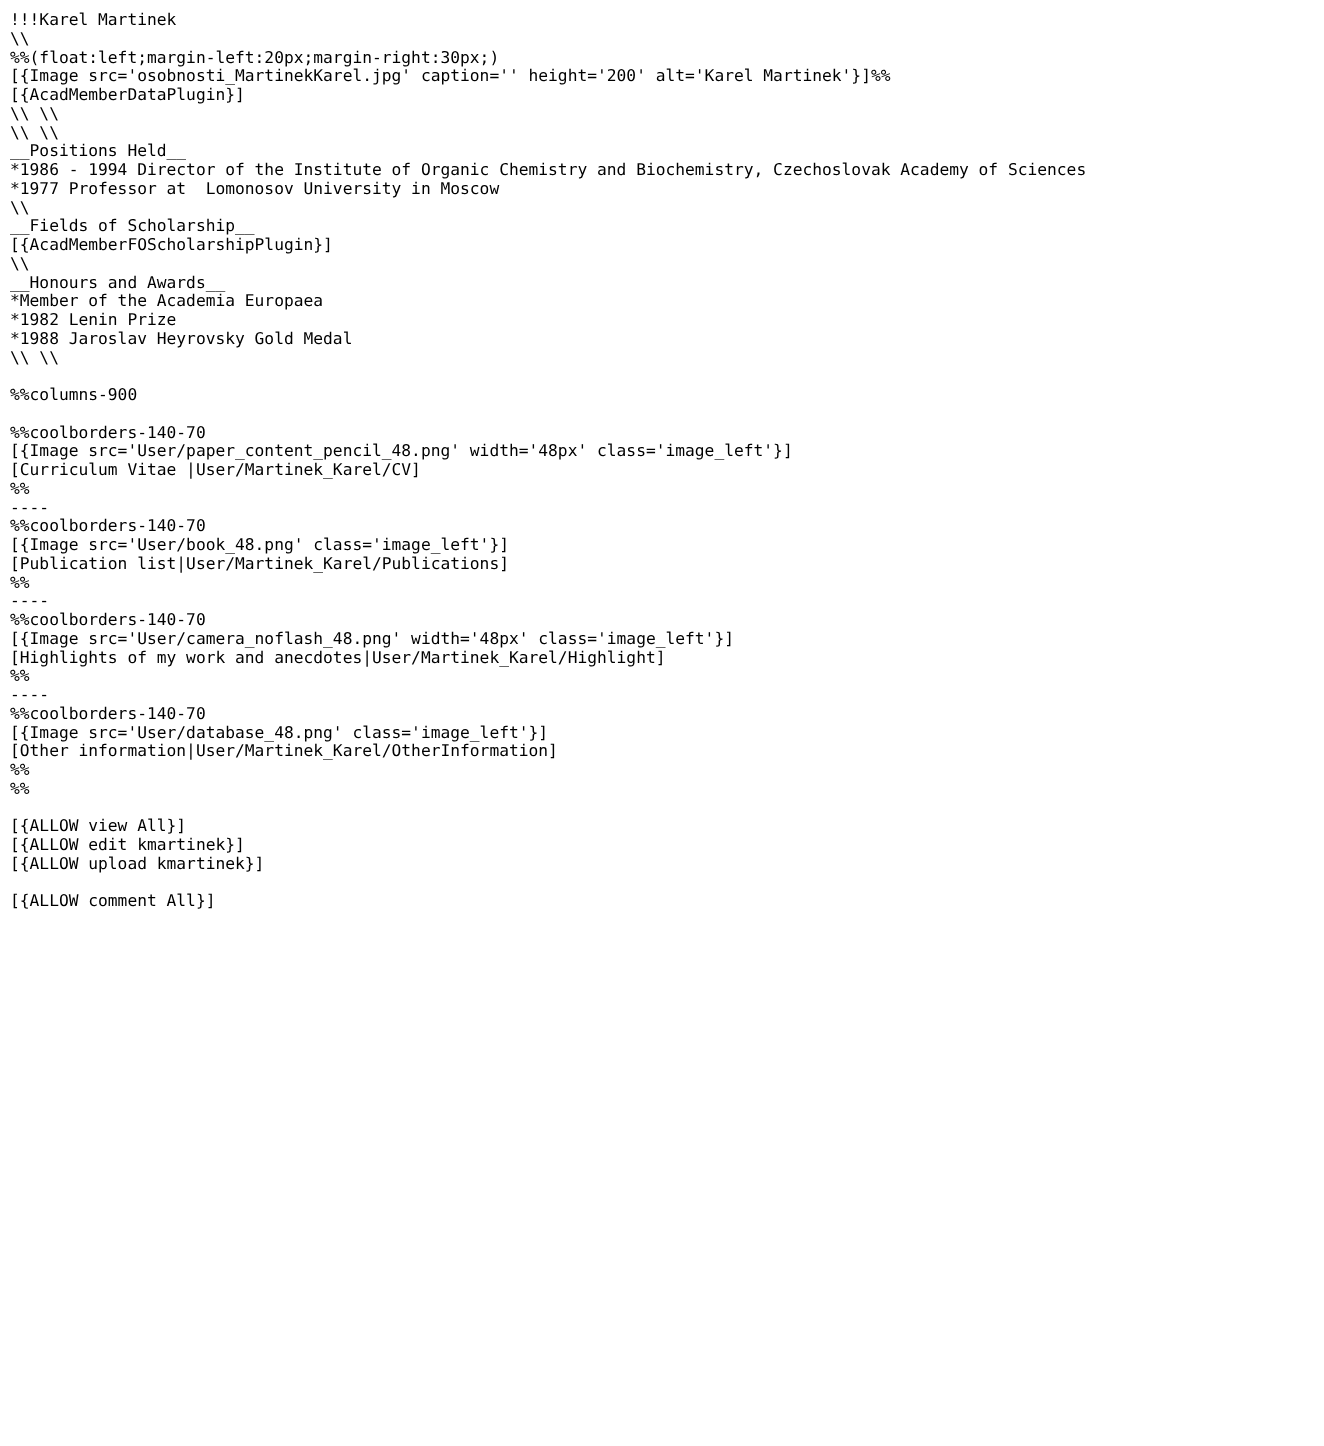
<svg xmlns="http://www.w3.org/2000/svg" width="1324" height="1446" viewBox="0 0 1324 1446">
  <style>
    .t1 { font: 16.25px DejaVu Sans Mono; fill: #000; }
  </style>
  <rect width="100%" height="100%" fill="#fff"/>
  <text x="10" y="25" class="t1">!!!Karel Martinek</text>
  <text x="10" y="44" class="t1">\\</text>
  <text x="10" y="63" class="t1">%%(float:left;margin-left:20px;margin-right:30px;)</text>
  <text x="10" y="81" class="t1">[{Image src='osobnosti_MartinekKarel.jpg' caption='' height='200' alt='Karel Martinek'}]%%</text>
  <text x="10" y="100" class="t1">[{AcadMemberDataPlugin}]</text>
  <text x="10" y="119" class="t1">\\ \\</text>
  <text x="10" y="138" class="t1">\\ \\</text>
  <text x="10" y="156" class="t1">__Positions Held__</text>
  <text x="10" y="175" class="t1">*1986 - 1994 Director of the Institute of Organic Chemistry and Biochemistry, Czechoslovak Academy of Sciences</text>
  <text x="10" y="194" class="t1" xml:space="preserve">*1977 Professor at  Lomonosov University in Moscow</text>
  <text x="10" y="213" class="t1">\\</text>
  <text x="10" y="231" class="t1">__Fields of Scholarship__</text>
  <text x="10" y="250" class="t1">[{AcadMemberFOScholarshipPlugin}]</text>
  <text x="10" y="269" class="t1">\\</text>
  <text x="10" y="288" class="t1">__Honours and Awards__</text>
  <text x="10" y="306" class="t1">*Member of the Academia Europaea</text>
  <text x="10" y="325" class="t1">*1982 Lenin Prize</text>
  <text x="10" y="344" class="t1">*1988 Jaroslav Heyrovsky Gold Medal</text>
  <text x="10" y="363" class="t1">\\ \\</text>
  <text x="10" y="400" class="t1">%%columns-900</text>
  <text x="10" y="438" class="t1">%%coolborders-140-70</text>
  <text x="10" y="456" class="t1">[{Image src='User/paper_content_pencil_48.png' width='48px' class='image_left'}]</text>
  <text x="10" y="475" class="t1">[Curriculum Vitae |User/Martinek_Karel/CV]</text>
  <text x="10" y="494" class="t1">%%</text>
  <text x="10" y="513" class="t1">----</text>
  <text x="10" y="531" class="t1">%%coolborders-140-70</text>
  <text x="10" y="550" class="t1">[{Image src='User/book_48.png' class='image_left'}]</text>
  <text x="10" y="569" class="t1">[Publication list|User/Martinek_Karel/Publications]</text>
  <text x="10" y="588" class="t1">%%</text>
  <text x="10" y="606" class="t1">----</text>
  <text x="10" y="625" class="t1">%%coolborders-140-70</text>
  <text x="10" y="644" class="t1">[{Image src='User/camera_noflash_48.png' width='48px' class='image_left'}]</text>
  <text x="10" y="663" class="t1">[Highlights of my work and anecdotes|User/Martinek_Karel/Highlight]</text>
  <text x="10" y="681" class="t1">%%</text>
  <text x="10" y="700" class="t1">----</text>
  <text x="10" y="719" class="t1">%%coolborders-140-70</text>
  <text x="10" y="738" class="t1">[{Image src='User/database_48.png' class='image_left'}]</text>
  <text x="10" y="756" class="t1">[Other information|User/Martinek_Karel/OtherInformation]</text>
  <text x="10" y="775" class="t1">%%</text>
  <text x="10" y="794" class="t1">%%</text>
  <text x="10" y="831" class="t1">[{ALLOW view All}]</text>
  <text x="10" y="850" class="t1">[{ALLOW edit kmartinek}]</text>
  <text x="10" y="869" class="t1">[{ALLOW upload kmartinek}]</text>
  <text x="10" y="906" class="t1">[{ALLOW comment All}]</text>
</svg>
